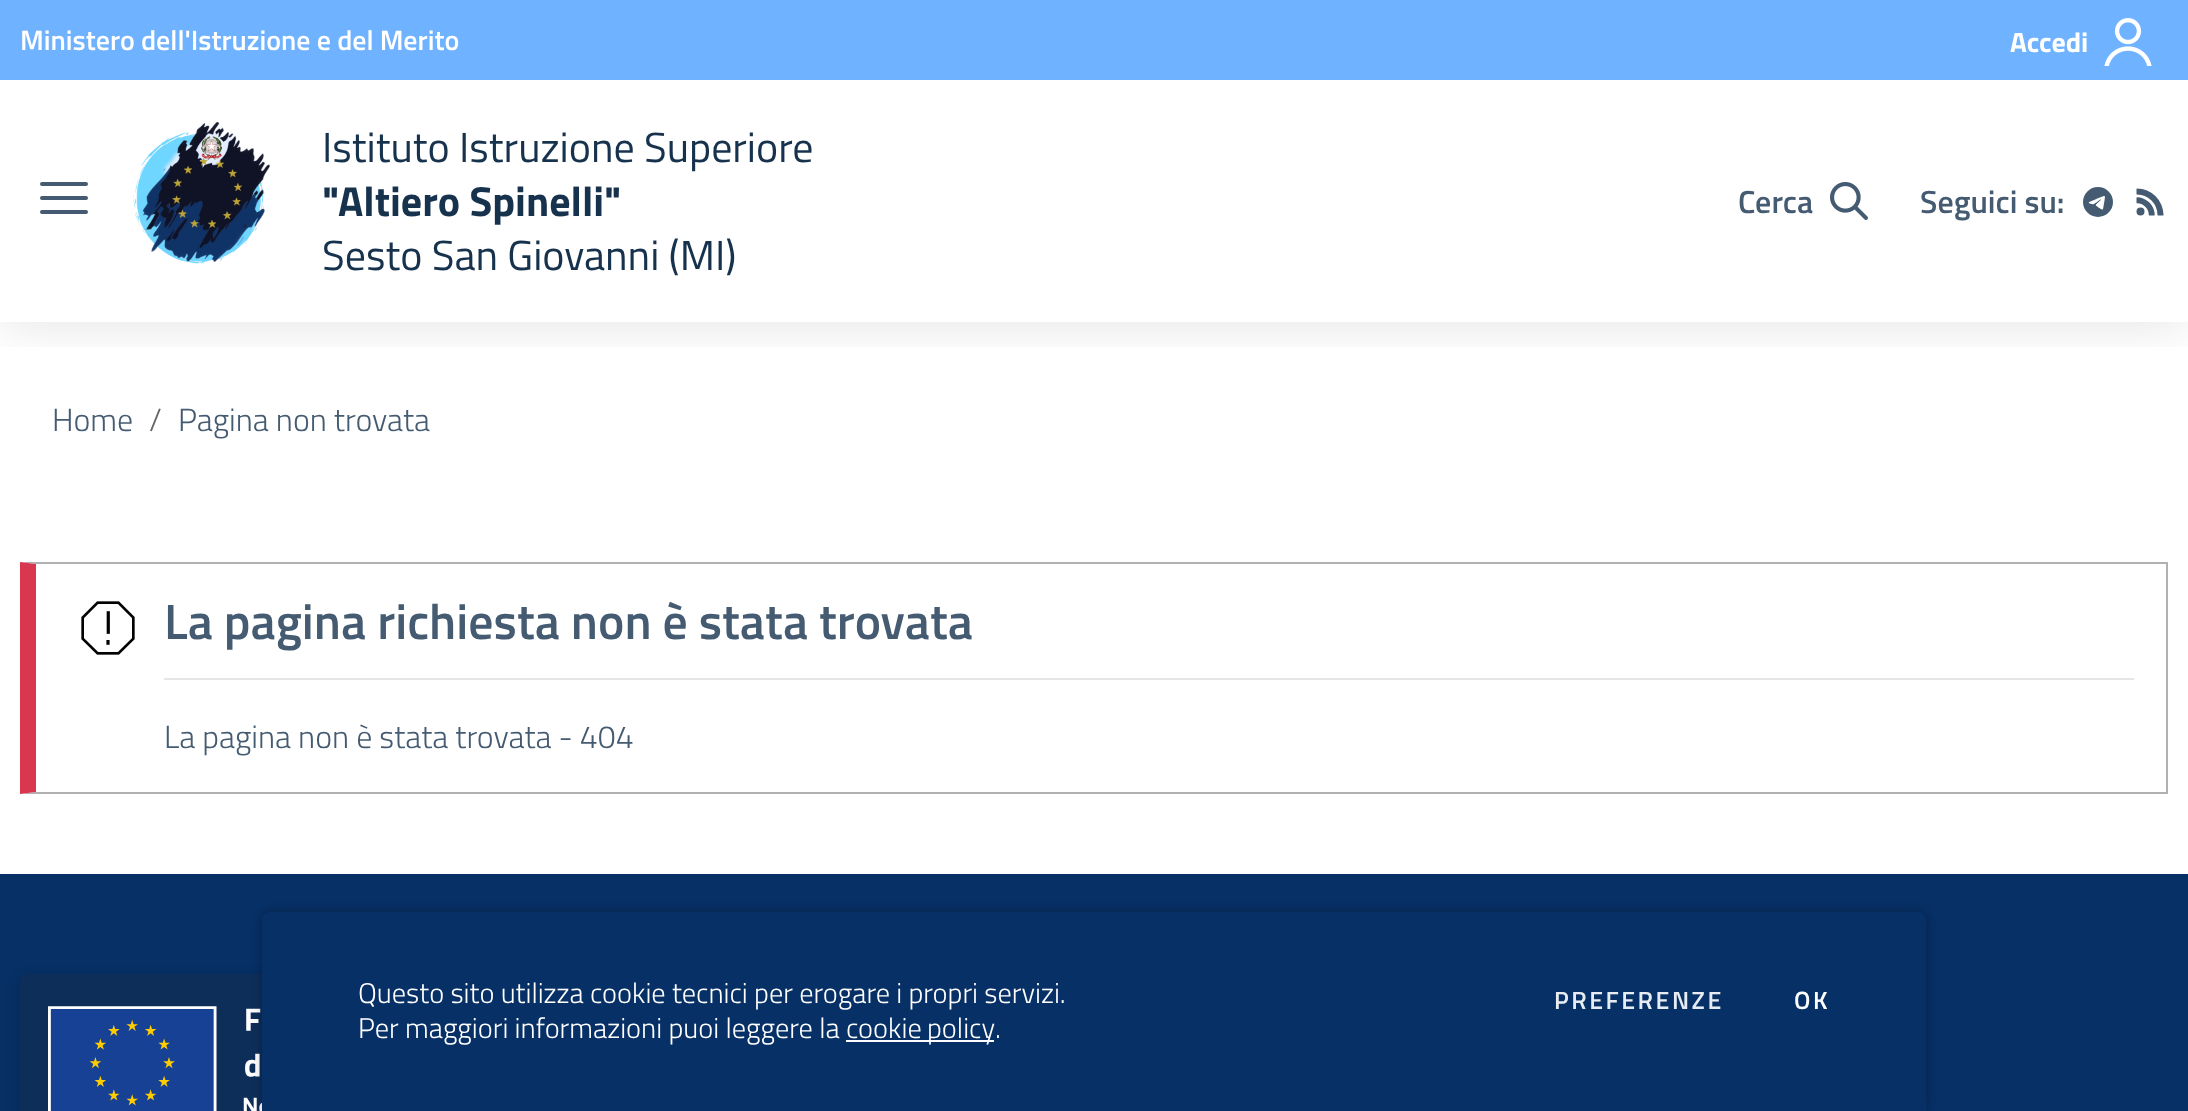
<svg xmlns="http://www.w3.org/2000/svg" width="2188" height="1111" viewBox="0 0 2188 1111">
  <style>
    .t1 { font: 600 28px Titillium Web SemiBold; fill: #fff; }
    .t2 { font: bold 28px Titillium Web; fill: #fff; }
    .t3 { font: 42px Titillium Web; fill: #17324d; }
    .t4 { font: bold 42px Titillium Web; fill: #17324d; }
    .t5 { font: 600 32px Titillium Web SemiBold; fill: #455b71; }
    .t6 { font: 300 32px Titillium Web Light; fill: #455b71; }
    .t7 { font: 300 32px Titillium Web Light; fill: #656566; }
    .t8 { font: 600 49.75px Titillium Web SemiBold; fill: #455b71; }
    .t9 { font: 300 28.45px Titillium Web Light; fill: #fff; }
    .t10 { font: 600 25px Titillium Web SemiBold; letter-spacing: 2.5px; fill: #e6ecf2; }
    .t11 { font: 600 25px Titillium Web SemiBold; letter-spacing: 2.5px; fill: #fff; }
  </style>
  <defs>
    <clipPath id="clip1"><rect x="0" y="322" width="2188" height="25"/></clipPath>
  </defs>
  <rect width="100%" height="100%" fill="#fff"/>
  <g clip-path="url(#clip1)">
    <rect x="0" y="4" width="2188" height="322" fill="#0000001a" filter="blur(25px)"/>
  </g>
  <rect x="0" y="0" width="2188" height="80" fill="#6fb2ff"/>
  <text x="20" y="50" class="t1">Ministero dell'Istruzione e del Merito</text>
  <text x="2010" y="52" class="t2">Accedi</text>
  <image x="2104" y="18" width="48" height="48" href="images/1.png"/>
  <rect x="40" y="196" width="48" height="4" rx="2" fill="#455b71"/>
  <rect x="40" y="182" width="48" height="4" rx="2" fill="#455b71"/>
  <rect x="40" y="210" width="48" height="4" rx="2" fill="#455b71"/>
  <image x="133" y="121" width="137" height="143" href="images/2.png"/>
  <text x="322" y="162" class="t3">Istituto Istruzione Superiore</text>
  <text x="322" y="216" class="t4">"Altiero Spinelli"</text>
  <text x="322" y="270" class="t3">Sesto San Giovanni (MI)</text>
  <text x="1738" y="213" class="t5">Cerca</text>
  <image x="1830" y="182" width="38" height="38" href="images/3.png"/>
  <text x="1920" y="213" class="t5">Seguici su:</text>
  <image x="2083" y="187" width="30" height="30" href="images/4.png"/>
  <image x="2136" y="188" width="28" height="28" href="images/5.png"/>
  <text x="52" y="431" class="t6">Home</text>
  <text x="149" y="431" class="t7">/</text>
  <text x="178" y="431" class="t6">Pagina non trovata</text>
  <image x="81" y="601" width="54" height="54" href="images/6.png"/>
  <path d="M20 562H2168L2166 564H36Z" fill="#b1b1b3"/>
  <rect x="2166" y="562" width="2" height="232" fill="#b1b1b3"/>
  <path d="M2168 794H20L36 792H2166Z" fill="#b1b1b3"/>
  <path d="M20 794V562L36 564V792Z" fill="#d9364f"/>
  <text x="164" y="639" class="t8">La pagina richiesta non è stata trovata</text>
  <rect x="164" y="678" width="1970" height="2" fill="#e6e6e6"/>
  <text x="164" y="748" class="t6">La pagina non è stata trovata - 404</text>
  <rect x="0" y="874" width="2188" height="237" fill="#073066"/>
  <rect x="20" y="978" width="536" height="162" rx="8" fill="#0000002b" filter="blur(7px)"/>
  <rect x="20" y="974" width="536" height="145" rx="8" fill="#0e2e5a"/>
  <image x="48" y="1006" width="214" height="105" href="images/7.png"/>
  <rect x="262" y="912" width="1664" height="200" rx="8" fill="#0000004d" filter="blur(5px)"/>
  <path d="M270 912H1918C1922.5 912 1926 915.5 1926 920V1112H262V920C262 915.5 265.5 912 270 912Z" fill="#073066"/>
  <text x="358" y="1003" class="t9">Questo sito utilizza cookie tecnici per erogare i propri servizi.</text>
  <text x="358" y="1038" class="t9">Per maggiori informazioni puoi leggere la</text>
  <rect x="846" y="1040" width="148" height="2" fill="#fff"/>
  <text x="846" y="1038" word-spacing="-1" class="t9">cookie policy</text>
  <text x="995" y="1038" class="t9">.</text>
  <text x="1554" y="1009" class="t10">PREFERENZE</text>
  <text x="1794" y="1009" class="t11">OK</text>
</svg>
